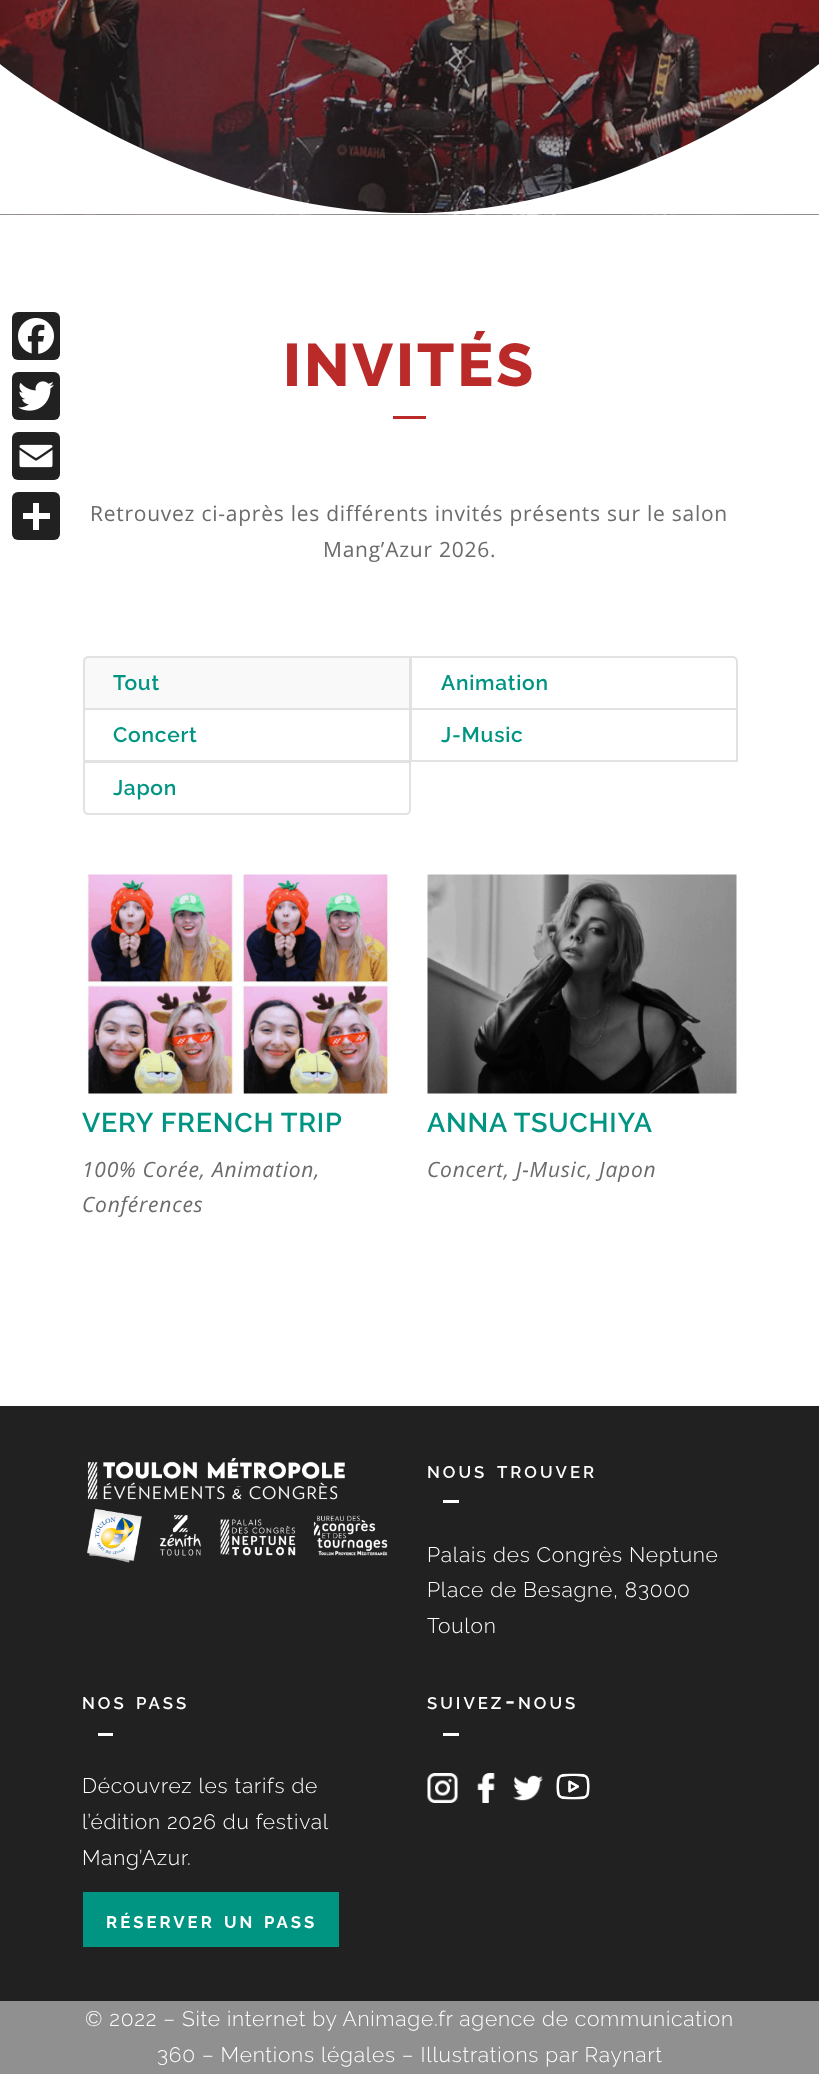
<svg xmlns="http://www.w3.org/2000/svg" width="819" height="2074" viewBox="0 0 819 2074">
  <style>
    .t1 { font: 800 60px Raleway; letter-spacing: 3px; fill: #ba2a29; }
    .t2 { font: 21px Open Sans; letter-spacing: 0.75px; fill: #6b6b6b; }
    .t3 { font: 600 21px Raleway; letter-spacing: 0.75px; fill: #009583; }
    .t4 { font: 600 27px Raleway; letter-spacing: 0.75px; fill: #009583; }
    .t5 { font: italic 21px Open Sans; letter-spacing: 0.75px; fill: #6b6b6b; }
    .t6 { font: 600 16.75px Raleway; letter-spacing: 3px; fill: #fff; }
    .t7 { font: 300 21px Raleway; letter-spacing: 0.75px; fill: #fff; }
    .t8 { font: bold 16.75px Raleway; letter-spacing: 3px; fill: #fff; }
    .t9 { font: 600 24px Raleway; letter-spacing: 3px; fill: #fff; }
  </style>
  <rect width="100%" height="100%" fill="#fff"/>
  <rect x="12" y="312" width="48" height="48" rx="6" fill="#212121"/>
  <image x="18" y="318" width="36" height="36" href="images/1.png"/>
  <rect x="12" y="372" width="48" height="48" rx="6" fill="#212121"/>
  <image x="18" y="381" width="36" height="30" href="images/2.png"/>
  <rect x="12" y="432" width="48" height="48" rx="6" fill="#212121"/>
  <image x="19" y="444" width="34" height="24" href="images/3.png"/>
  <rect x="12" y="492" width="48" height="48" rx="6" fill="#212121"/>
  <rect x="33" y="503" width="6" height="27" fill="#fff"/>
  <rect x="23" y="513" width="27" height="6" fill="#fff"/>
  <image x="0" y="0" width="819" height="215" href="images/4.png"/>
  <path d="M819 214V64C819 64 636 214 410 213C183 212 0 64 0 64V214Z" fill="#fff"/>
  <text x="283" y="386" class="t1">INVITÉS</text>
  <rect x="393" y="416" width="33" height="3" fill="#ba2a29"/>
  <text x="90" y="521" class="t2">Retrouvez ci-après les différents invités présents sur le salon</text>
  <text x="323" y="557" class="t2">Mang’Azur 2026.</text>
  <path d="M88 657H410V709H84V661C84 659 86 657 88 657Z" fill="#f9f9f9" stroke="#e2e2e2" stroke-width="2"/>
  <text x="113" y="690" class="t3">Tout</text>
  <path d="M411 657H733C735 657 737 659 737 661V709H411Z" fill="#fff" stroke="#e2e2e2" stroke-width="2"/>
  <text x="441" y="690" class="t3">Animation</text>
  <rect x="84" y="709" width="326" height="52" fill="none" stroke="#e2e2e2" stroke-width="2"/>
  <text x="113" y="742" class="t3">Concert</text>
  <rect x="411" y="709" width="326" height="52" fill="none" stroke="#e2e2e2" stroke-width="2"/>
  <text x="441" y="742" class="t3">J-Music</text>
  <path d="M84 762H410V810C410 812 408 814 406 814H88C86 814 84 812 84 810Z" fill="#fff" stroke="#e2e2e2" stroke-width="2"/>
  <text x="113" y="795" class="t3">Japon</text>
  <image x="86" y="874" width="305" height="220" href="images/5.png"/>
  <text x="82" y="1132" class="t4">VERY FRENCH TRIP</text>
  <text x="82" y="1177" class="t5">100% Corée, Animation,</text>
  <text x="82" y="1212" class="t5">Conférences</text>
  <image x="427" y="874" width="310" height="220" href="images/6.png"/>
  <text x="427" y="1132" class="t4">ANNA TSUCHIYA</text>
  <text x="427" y="1177" class="t5">Concert, J-Music, Japon</text>
  <rect x="0" y="1406" width="819" height="595" fill="#212121"/>
  <image x="87" y="1458" width="301" height="105" href="images/7.png"/>
  <text x="427" y="1478" class="t6">NOUS</text>
  <text x="497" y="1478" class="t6">TROUVER</text>
  <rect x="443" y="1500" width="16" height="3" fill="#fff"/>
  <text x="427" y="1562" class="t7">Palais des Congrès Neptune</text>
  <text x="427" y="1597" class="t7">Place de Besagne, 83000</text>
  <text x="427" y="1633" class="t7">Toulon</text>
  <text x="82" y="1709" class="t6">NOS</text>
  <text x="136" y="1709" class="t6">PASS</text>
  <rect x="98" y="1733" width="15" height="3" fill="#fff"/>
  <text x="82" y="1793" class="t7">Découvrez les tarifs de</text>
  <text x="82" y="1829" class="t7">l’édition 2026 du festival</text>
  <text x="82" y="1865" class="t7">Mang’Azur.</text>
  <rect x="83" y="1892" width="256" height="55" fill="#009583"/>
  <text x="106" y="1928" class="t8">RÉSERVER</text>
  <text x="224" y="1928" class="t8">UN</text>
  <text x="264" y="1928" class="t8">PASS</text>
  <text x="427" y="1709" class="t6">SUIVEZ</text>
  <text x="505" y="1709" class="t9">-</text>
  <text x="518" y="1709" class="t6">NOUS</text>
  <rect x="443" y="1733" width="16" height="3" fill="#fff"/>
  <image x="427" y="1773" width="31" height="30" href="images/8.png"/>
  <image x="477" y="1773" width="18" height="30" href="images/9.png"/>
  <image x="513" y="1775" width="30" height="26" href="images/10.png"/>
  <image x="556" y="1773" width="34" height="27" href="images/11.png"/>
  <rect x="0" y="2001" width="819" height="73" fill="#909090"/>
  <text x="85" y="2026" class="t7">© 2022 – Site internet by Animage.fr agence de communication</text>
  <text x="157" y="2062" class="t7">360 – Mentions légales – Illustrations par Raynart</text>
</svg>
